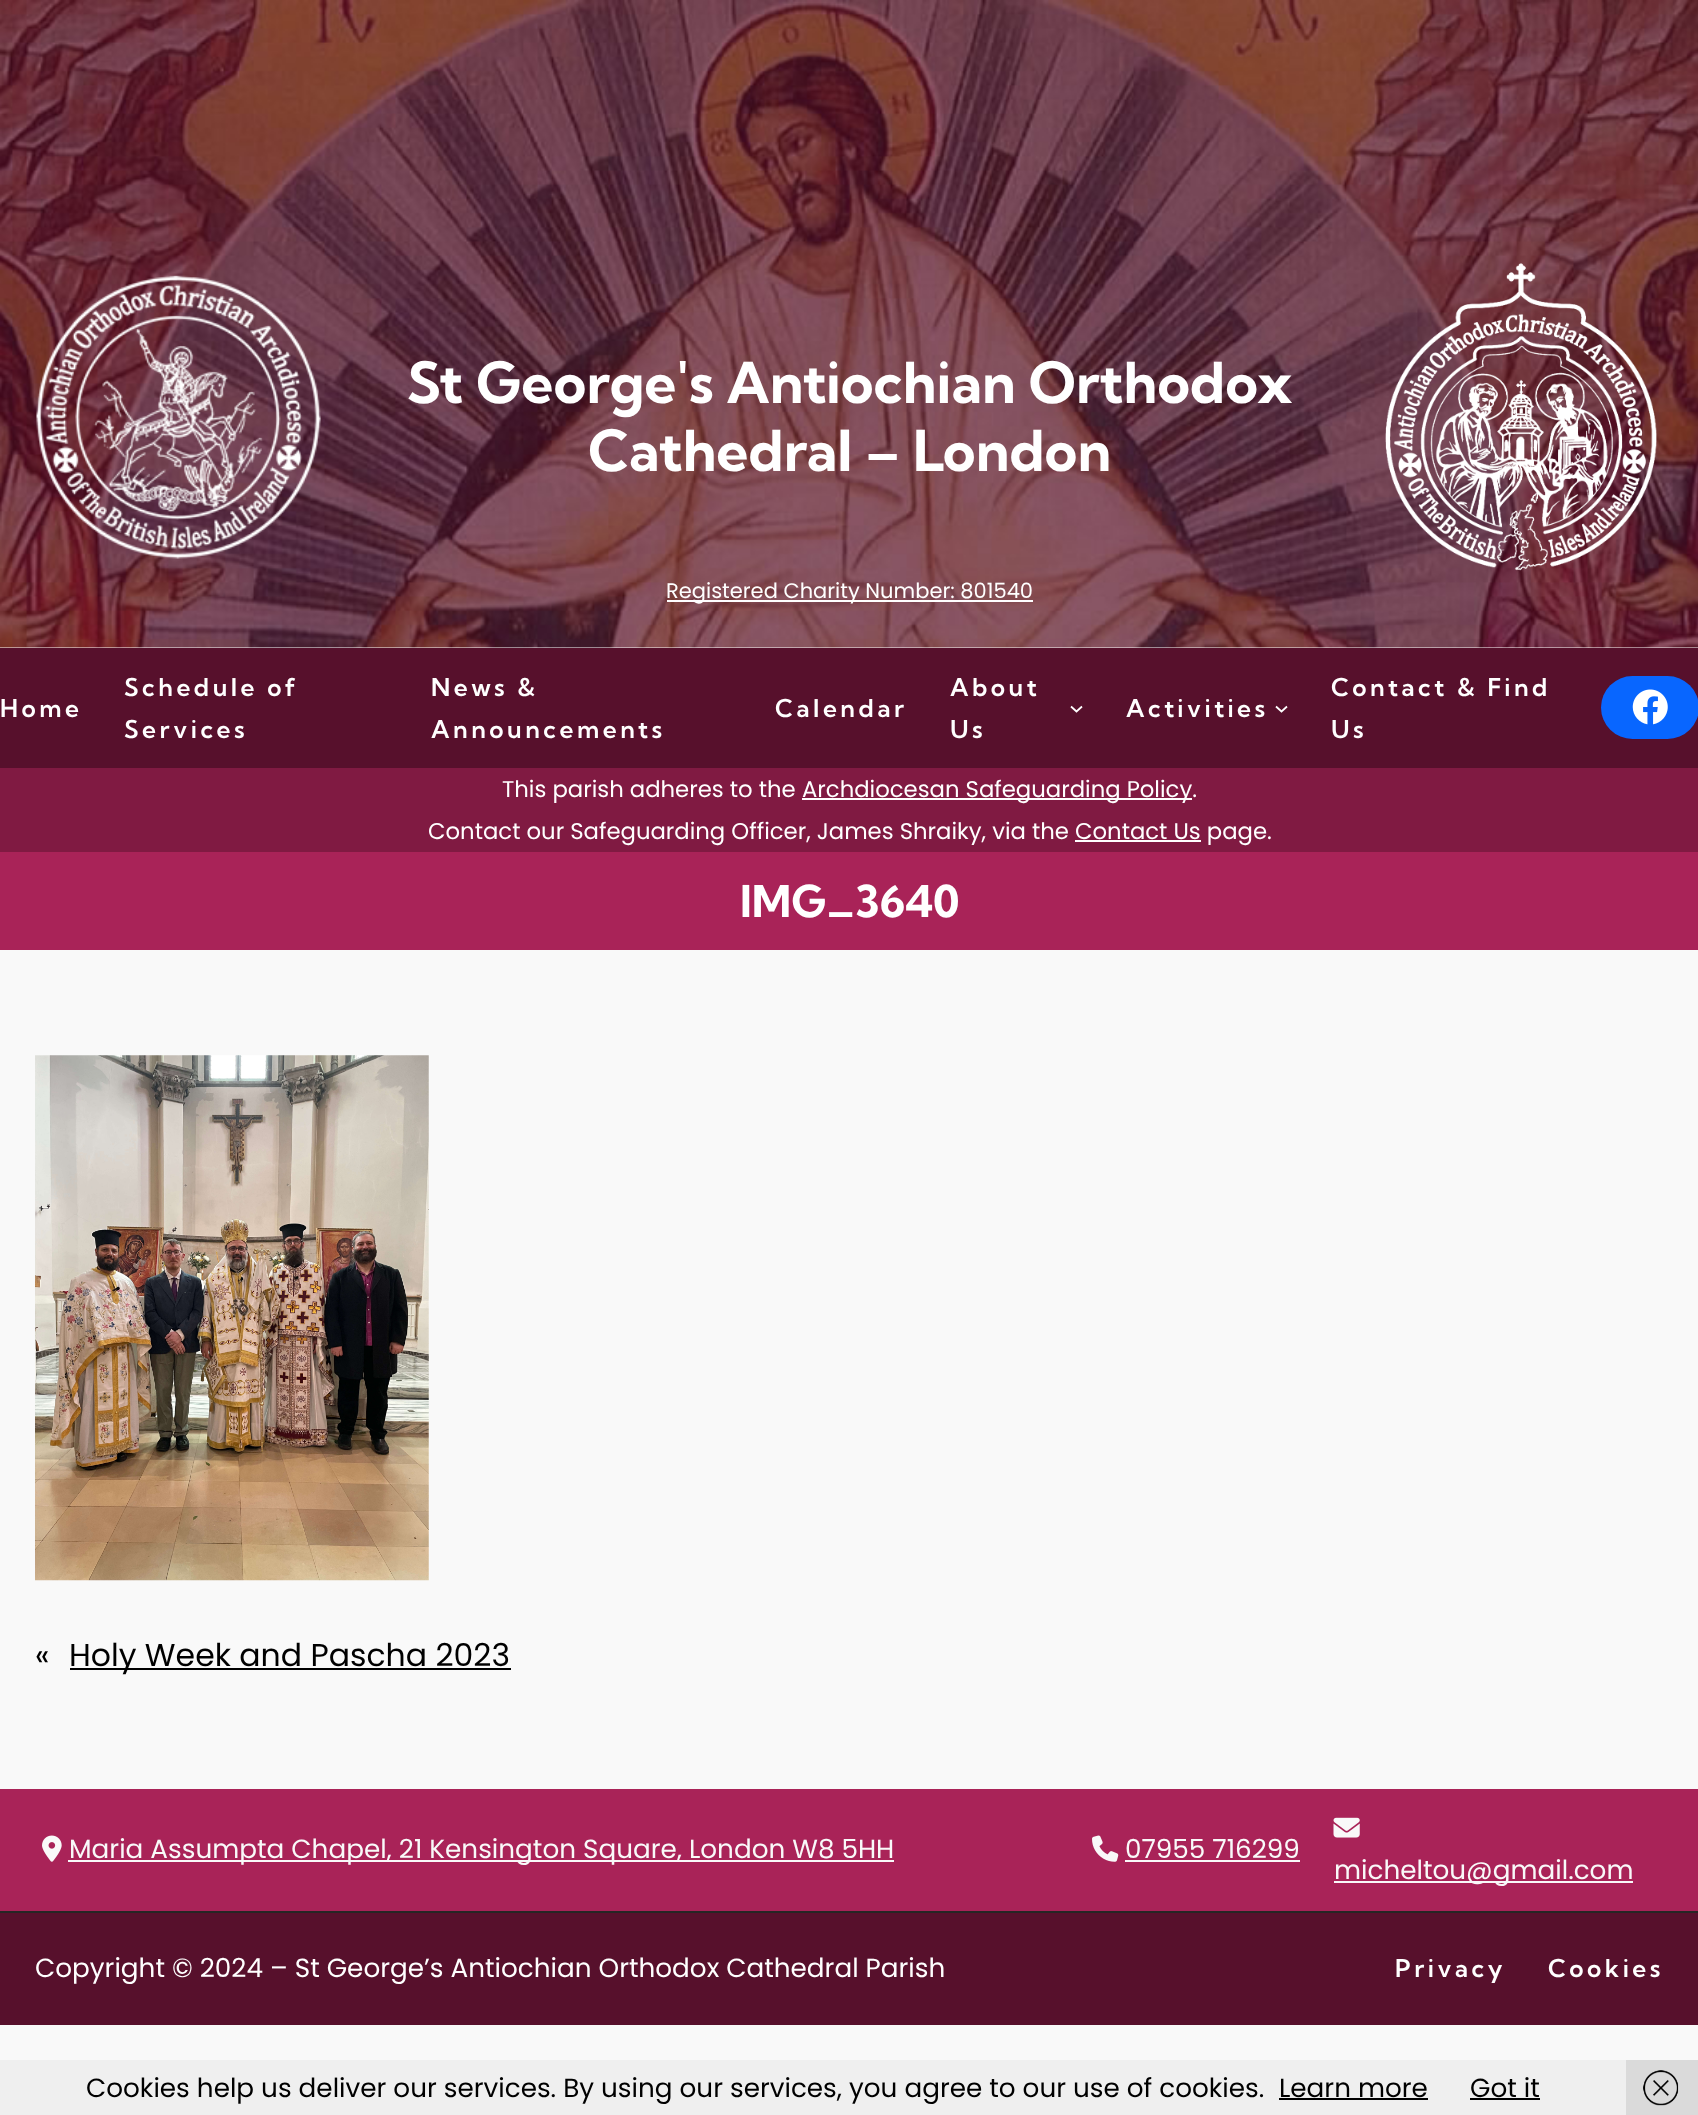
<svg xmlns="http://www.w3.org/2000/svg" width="1698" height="2115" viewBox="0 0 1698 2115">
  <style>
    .t1 { font: bold 56.5px Kumbh Sans; fill: #fff; }
    .t2 { font: 21px Poppins; fill: #fff; }
    .t3 { font: 600 24.5px Kumbh Sans; letter-spacing: 3.5px; fill: #fff; }
    .t4 { font: 22.75px Poppins; fill: #fff; }
    .t5 { font: bold 43.75px Kumbh Sans; fill: #fff; }
    .t6 { font: 31.5px Poppins; fill: #000; }
    .t7 { font: 26.25px Poppins; fill: #f9f9f9; }
    .t8 { font: 26.25px Poppins; fill: #fff; }
    .t9 { font: 26.25px Poppins; fill: #000; }
  </style>
  <rect width="100%" height="100%" fill="#f9f9f9"/>
  <rect x="0" y="647" width="1698" height="1" fill="#fff"/>
  <image x="0" y="0" width="1698" height="648" href="images/1.png"/>
  <image x="36" y="275" width="285" height="284" href="images/2.png"/>
  <text x="407" y="403" class="t1">St George's Antiochian Orthodox</text>
  <text x="588" y="471" class="t1">Cathedral – London</text>
  <image x="1385" y="263" width="272" height="308" href="images/3.png"/>
  <rect x="667" y="600" width="366" height="2" fill="#fff"/>
  <text x="666" y="598" class="t2">Registered Charity Number: 801540</text>
  <rect x="0" y="648" width="1698" height="120" fill="#57102c"/>
  <text x="0" y="717" class="t3">Home</text>
  <text x="124" y="696" class="t3">Schedule of</text>
  <text x="124" y="738" class="t3">Services</text>
  <text x="431" y="696" class="t3">News &amp;</text>
  <text x="431" y="738" class="t3">Announcements</text>
  <text x="775" y="717" class="t3">Calendar</text>
  <text x="950" y="696" class="t3">About</text>
  <text x="950" y="738" class="t3">Us</text>
  <path d="M1071 706.5L1076.5 711.5L1082 706.5" fill="none" stroke="#fff" stroke-width="1.8"/>
  <text x="1126" y="717" class="t3">Activities</text>
  <path d="M1276 706.5L1281.5 711.5L1287 706.5" fill="none" stroke="#fff" stroke-width="1.8"/>
  <text x="1331" y="696" class="t3">Contact &amp; Find</text>
  <text x="1331" y="738" class="t3">Us</text>
  <rect x="1601" y="676" width="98" height="63" rx="31.5" fill="#0866ff"/>
  <image x="1632" y="689" width="36" height="36" href="images/4.png"/>
  <rect x="0" y="768" width="1698" height="84" fill="#801a42"/>
  <text x="502" y="797" class="t4">This parish adheres to the</text>
  <rect x="802" y="798" width="390" height="2" fill="#fff"/>
  <text x="802" y="797" class="t4">Archdiocesan Safeguarding Policy.</text>
  <text x="428" y="839" class="t4">Contact our Safeguarding Officer, James Shraiky, via the Contact Us page.</text>
  <rect x="1075" y="840" width="126" height="2" fill="#fff"/>
  <rect x="0" y="852" width="1698" height="98" fill="#a92358"/>
  <text x="740" y="917" class="t5">IMG_3640</text>
  <image x="35" y="1055" width="394" height="526" href="images/5.png"/>
  <text x="35" y="1666" class="t6">«</text>
  <rect x="70" y="1668" width="441" height="2" fill="#000"/>
  <text x="69" y="1666" class="t6">Holy Week and Pascha 2023</text>
  <rect x="0" y="1789" width="1698" height="122" fill="#a92358"/>
  <image x="42" y="1835" width="20" height="27" href="images/6.png"/>
  <rect x="68" y="1860" width="826" height="2" fill="#f9f9f9"/>
  <text x="69" y="1858" class="t7">Maria Assumpta Chapel, 21 Kensington Square, London W8 5HH</text>
  <image x="1092" y="1835" width="27" height="27" href="images/7.png"/>
  <text x="1125" y="1858" class="t7">07955 716299</text>
  <rect x="1125" y="1860" width="175" height="2" fill="#f9f9f9"/>
  <image x="1333" y="1817" width="27" height="21" href="images/8.png"/>
  <rect x="1334" y="1881" width="299" height="2" fill="#f9f9f9"/>
  <text x="1334" y="1879" class="t7">micheltou@gmail.com</text>
  <rect x="0" y="1913" width="1698" height="112" fill="#57102c"/>
  <rect x="0" y="1911" width="1698" height="2" fill="#262525"/>
  <text x="35" y="1977" class="t8">Copyright © 2024 – St George’s Antiochian Orthodox Cathedral Parish</text>
  <text x="1395" y="1977" class="t3">Privacy</text>
  <text x="1548" y="1977" class="t3">Cookies</text>
  <rect x="0" y="2060" width="1626" height="55" fill="#efefef"/>
  <text x="86" y="2097" class="t9">Cookies help us deliver our services. By using our services, you agree to our use of cookies.</text>
  <text x="1279" y="2097" class="t9">Learn more</text>
  <rect x="1279" y="2098" width="149" height="2" fill="#000"/>
  <text x="1470" y="2097" class="t9">Got it</text>
  <rect x="1470" y="2098" width="70" height="2" fill="#000"/>
  <rect x="1626" y="2060" width="72" height="55" fill="#dadada"/>
  <image x="1643" y="2070" width="36" height="36" href="images/9.png"/>
</svg>
